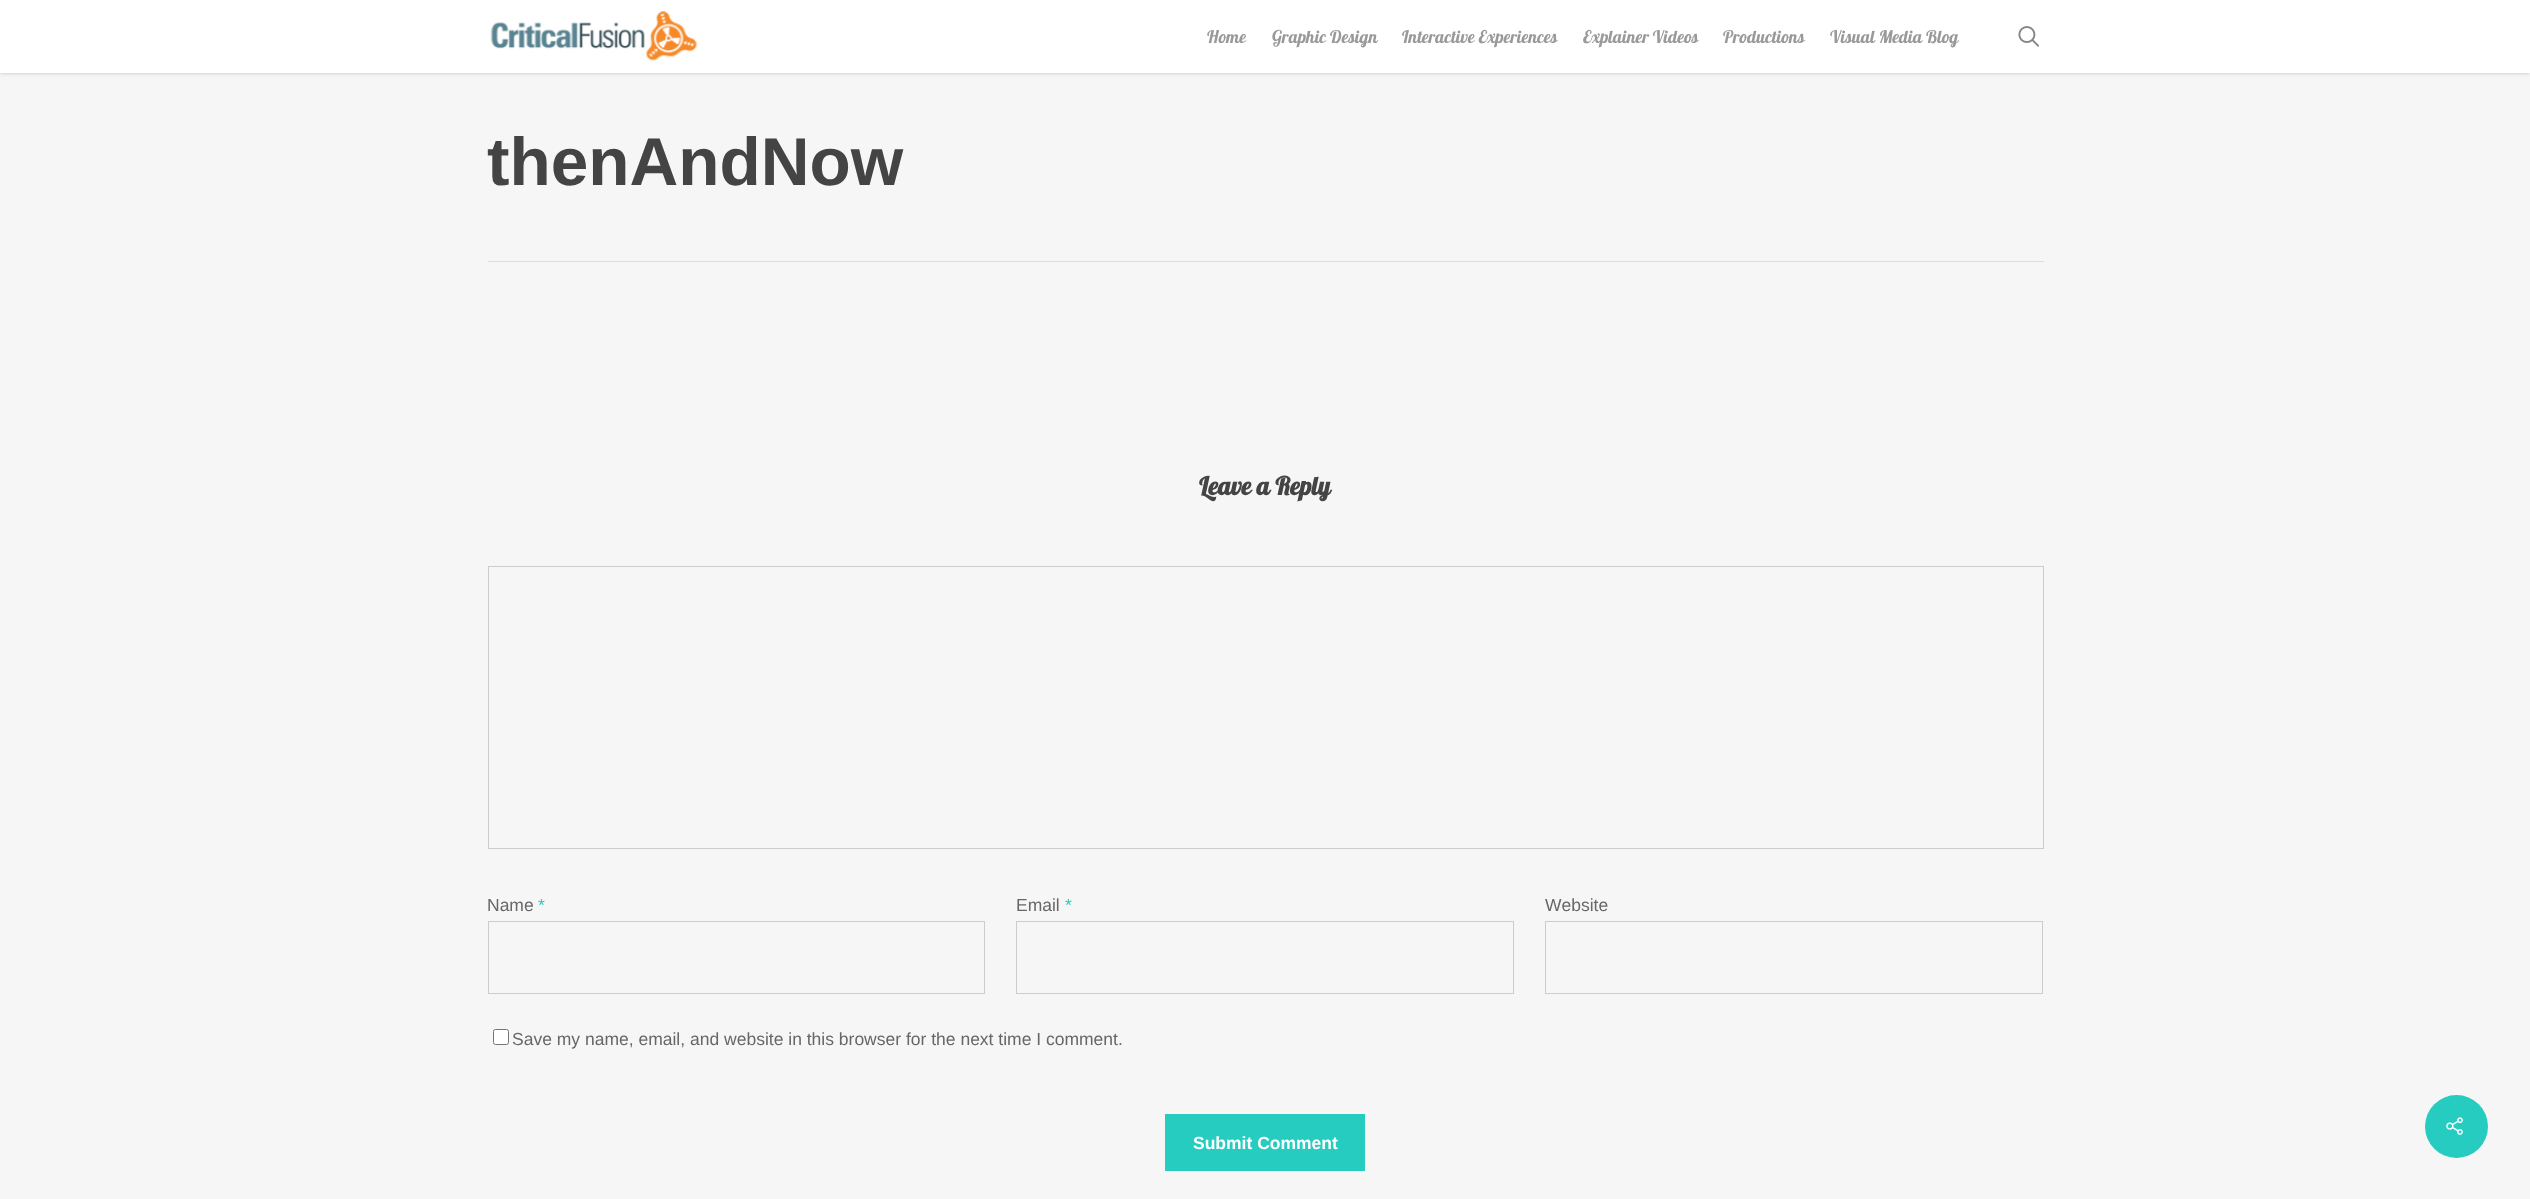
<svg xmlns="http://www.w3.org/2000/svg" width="2530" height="1199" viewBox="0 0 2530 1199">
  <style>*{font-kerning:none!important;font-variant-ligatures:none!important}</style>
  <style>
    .t1 { font: 17.5px Lobster; fill: #999; }
    .t2 { font: bold 67.5px Liberation Sans; fill: #444; }
    .t3 { font: bold 25px Lobster; fill: #444; }
    .t4 { font: 17.5px Liberation Sans; fill: #676767; }
    .t5 { font: 17.5px Liberation Sans; fill: #27ccc0; }
    .t6 { font: bold 17.5px Liberation Sans; fill: #fff; }
  </style>
  <rect width="100%" height="100%" fill="#f6f6f6"/>
  <rect x="0" y="0" width="2530" height="73" fill="#00000038" filter="blur(2px)"/>
  <rect x="0" y="0" width="2530" height="73" fill="#fff"/>
  <image x="490" y="11" width="208" height="51" href="images/1.png"/>
  <text x="1207" y="43" class="t1">Home</text>
  <text x="1272" y="43" class="t1">Graphic Design</text>
  <text x="1402" y="43" class="t1">Interactive Experiences</text>
  <text x="1583" y="43" class="t1">Explainer Videos</text>
  <text x="1723" y="43" class="t1">Productions</text>
  <text x="1830" y="43" class="t1">Visual Media Blog</text>
  <image x="2018" y="26" width="21" height="21" href="images/2.png"/>
  <rect x="488" y="261" width="1556" height="1" fill="#ddd"/>
  <text x="487" y="185" class="t2">thenAndNow</text>
  <text x="1199" y="495" class="t3">Leave a Reply</text>
  <rect x="488.5" y="566.5" width="1555" height="282" fill="none" stroke="#ccc"/>
  <text x="487" y="911" class="t4">Name</text>
  <text x="538" y="911" class="t5">*</text>
  <rect x="488.5" y="921.5" width="496" height="72" fill="none" stroke="#ccc"/>
  <text x="1016" y="911" class="t4">Email</text>
  <text x="1065" y="911" class="t5">*</text>
  <rect x="1016.5" y="921.5" width="497" height="72" fill="none" stroke="#ccc"/>
  <text x="1545" y="911" class="t4">Website</text>
  <rect x="1545.5" y="921.5" width="497" height="72" fill="none" stroke="#ccc"/>
  <rect x="493.5" y="1029.5" width="15" height="15" rx="2" fill="#fff" stroke="#767676"/>
  <text x="512" y="1045" class="t4">Save my name, email, and website in this browser for the next time I comment.</text>
  <rect x="1165" y="1114" width="200" height="57" fill="#27ccc0"/>
  <text x="1193" y="1149" class="t6">Submit Comment</text>
  <circle cx="2456.5" cy="1126.5" r="31.5" fill="#27ccc0"/>
  <image x="2446" y="1117" width="17" height="18" href="images/3.png"/>
</svg>
